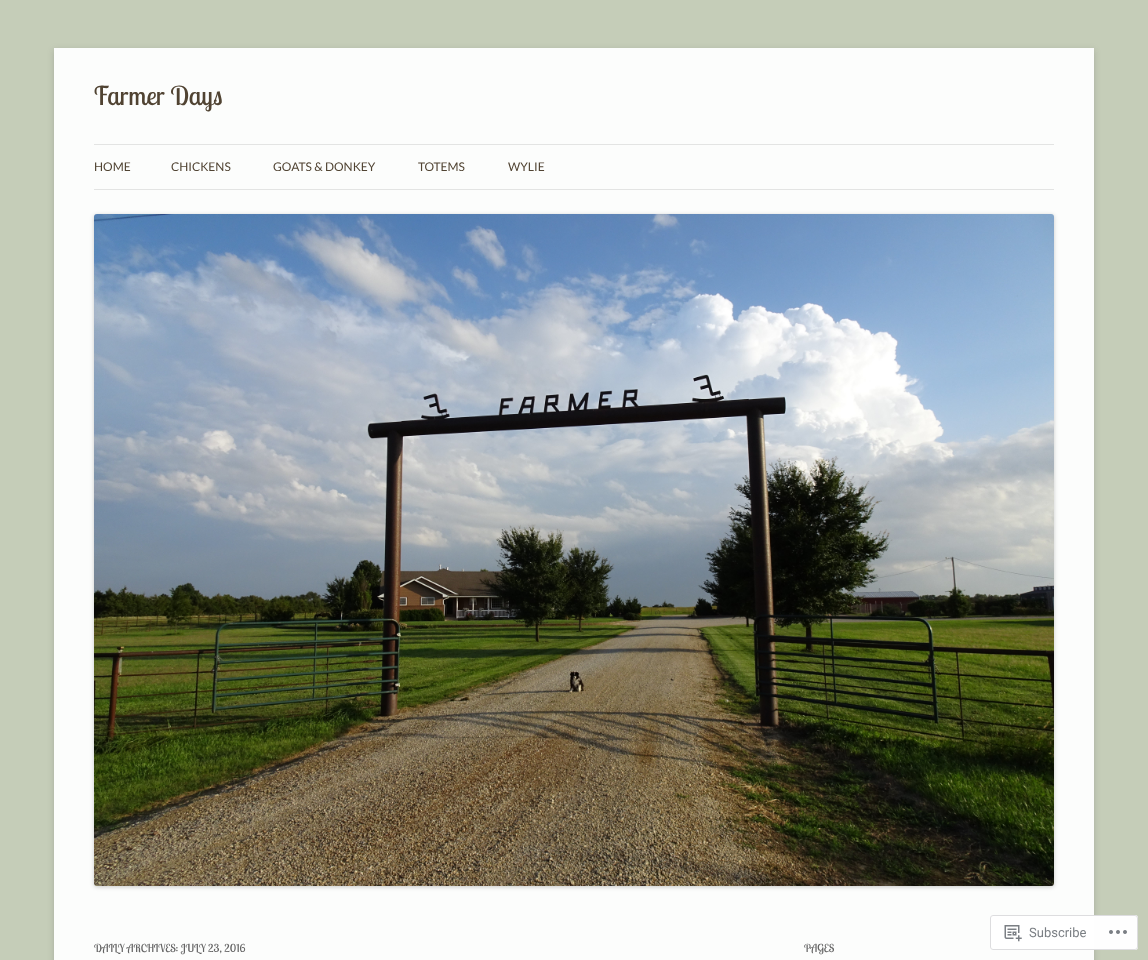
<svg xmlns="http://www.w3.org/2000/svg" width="1148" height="960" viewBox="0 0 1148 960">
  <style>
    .t1 { font: 26px Lobster Two; fill: #504332; }
    .t2 { font: 12px Lato; fill: #504332; }
    .t3 { font: 11px Lobster Two; fill: #636363; }
    .t4 { font: 13px Roboto; fill: #7b7f84; }
  </style>
  <rect width="100%" height="100%" fill="#c5cdb8"/>
  <rect x="54" y="50" width="1040" height="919" fill="#6464644d" filter="blur(3px)"/>
  <rect x="54" y="48" width="1040" height="912" fill="#fcfdfc"/>
  <text x="94" y="105" class="t1">Farmer Days</text>
  <rect x="94" y="144" width="960" height="1" fill="#e3e4e3"/>
  <rect x="94" y="189" width="960" height="1" fill="#e3e4e3"/>
  <text x="94" y="171" class="t2">HOME</text>
  <text x="171" y="171" class="t2">CHICKENS</text>
  <text x="273" y="171" class="t2">GOATS &amp; DONKEY</text>
  <text x="418" y="171" class="t2">TOTEMS</text>
  <text x="508" y="171" class="t2">WYLIE</text>
  <rect x="94" y="215" width="960" height="672" rx="3" fill="#00000033" filter="blur(2px)"/>
  <image x="94" y="214" width="960" height="672" href="images/1.png"/>
  <text x="94" y="952" class="t3">DAILY ARCHIVES: JULY 23, 2016</text>
  <text x="804" y="952" class="t3">PAGES</text>
  <rect x="990" y="915" width="148" height="35" rx="3" fill="#fffffffa"/>
  <rect x="990.5" y="915.5" width="147" height="34" rx="2.5" fill="none" stroke="#dcdcdefa"/>
  <image x="1004" y="925" width="18" height="17" href="images/2.png"/>
  <text x="1029" y="937" class="t4">Subscribe</text>
  <image x="1109" y="930" width="18" height="4" href="images/3.png"/>
</svg>
